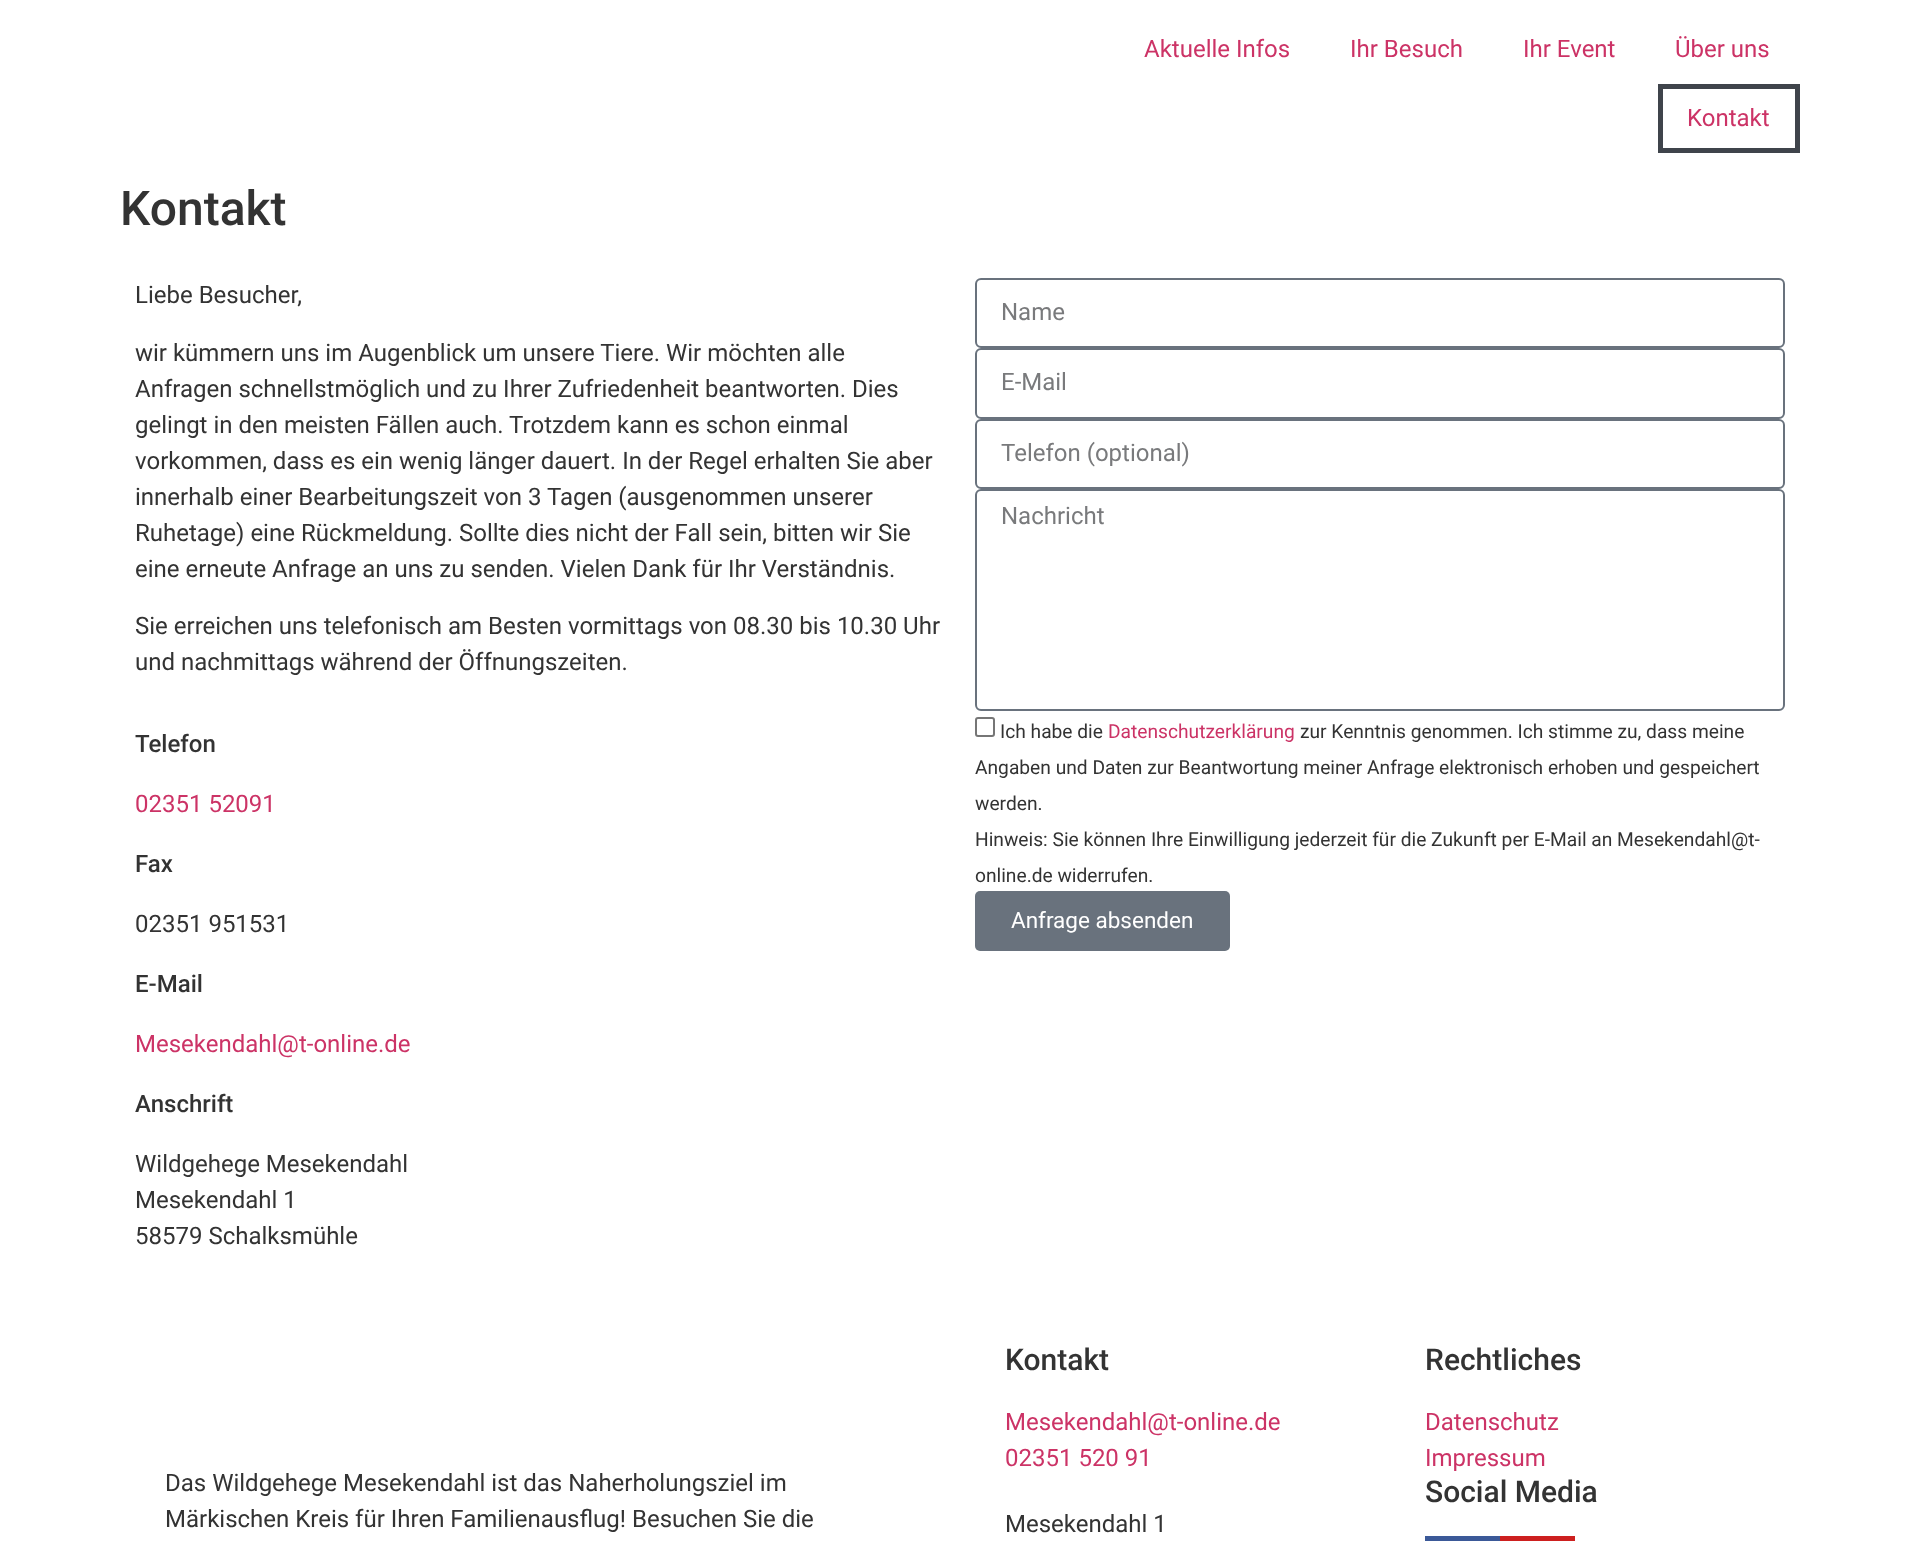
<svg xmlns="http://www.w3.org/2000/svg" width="1920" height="1541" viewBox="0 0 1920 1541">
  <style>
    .t1 { font: 24px Roboto; fill: #c36; }
    .t2 { font: 500 48px Roboto; fill: #333; }
    .t3 { font: 24px Roboto; fill: #333; }
    .t4 { font: 500 24px Roboto; fill: #333; }
    .t5 { font: 24px Roboto; fill: #797a7c; }
    .t6 { font: 19.2px Roboto; fill: #333; }
    .t7 { font: 19.2px Roboto; fill: #c36; }
    .t8 { font: 22.5px Roboto; fill: #fff; }
    .t9 { font: 500 30px Roboto; fill: #333; }
  </style>
  <rect width="100%" height="100%" fill="#fff"/>
  <text x="1144" y="57" class="t1">Aktuelle Infos</text>
  <text x="1350" y="57" class="t1">Ihr Besuch</text>
  <text x="1523" y="57" class="t1">Ihr Event</text>
  <text x="1675" y="57" class="t1">Über uns</text>
  <rect x="1660.5" y="86.5" width="137" height="64" fill="none" stroke="#3f444b" stroke-width="5"/>
  <text x="1687" y="126" class="t1">Kontakt</text>
  <text x="120" y="225" class="t2">Kontakt</text>
  <text x="135" y="303" class="t3">Liebe Besucher,</text>
  <text x="135" y="361" class="t3">wir kümmern uns im Augenblick um unsere Tiere. Wir möchten alle</text>
  <text x="135" y="397" class="t3">Anfragen schnellstmöglich und zu Ihrer Zufriedenheit beantworten. Dies</text>
  <text x="135" y="433" class="t3">gelingt in den meisten Fällen auch. Trotzdem kann es schon einmal</text>
  <text x="135" y="469" class="t3">vorkommen, dass es ein wenig länger dauert. In der Regel erhalten Sie aber</text>
  <text x="135" y="505" class="t3">innerhalb einer Bearbeitungszeit von 3 Tagen (ausgenommen unserer</text>
  <text x="135" y="541" class="t3">Ruhetage) eine Rückmeldung. Sollte dies nicht der Fall sein, bitten wir Sie</text>
  <text x="135" y="577" class="t3">eine erneute Anfrage an uns zu senden. Vielen Dank für Ihr Verständnis.</text>
  <text x="135" y="634" class="t3">Sie erreichen uns telefonisch am Besten vormittags von 08.30 bis 10.30 Uhr</text>
  <text x="135" y="670" class="t3">und nachmittags während der Öffnungszeiten.</text>
  <text x="135" y="752" class="t4">Telefon</text>
  <text x="135" y="812" class="t1">02351 52091</text>
  <text x="135" y="872" class="t4">Fax</text>
  <text x="135" y="932" class="t3">02351 951531</text>
  <text x="135" y="992" class="t4">E-Mail</text>
  <text x="135" y="1052" class="t1">Mesekendahl@t-online.de</text>
  <text x="135" y="1112" class="t4">Anschrift</text>
  <text x="135" y="1172" class="t3">Wildgehege Mesekendahl</text>
  <text x="135" y="1208" class="t3">Mesekendahl 1</text>
  <text x="135" y="1244" class="t3">58579 Schalksmühle</text>
  <rect x="976" y="279" width="808" height="68" rx="5" fill="none" stroke="#69727d" stroke-width="2"/>
  <text x="1001" y="320" class="t5">Name</text>
  <rect x="976" y="349" width="808" height="69" rx="5" fill="none" stroke="#69727d" stroke-width="2"/>
  <text x="1001" y="390" class="t5">E-Mail</text>
  <rect x="976" y="420" width="808" height="68" rx="5" fill="none" stroke="#69727d" stroke-width="2"/>
  <text x="1001" y="461" class="t5">Telefon (optional)</text>
  <rect x="976" y="490" width="808" height="220" rx="5" fill="none" stroke="#69727d" stroke-width="2"/>
  <text x="1001" y="524" class="t5">Nachricht</text>
  <rect x="976" y="718" width="18" height="18" rx="2" fill="none" stroke="#767676" stroke-width="2"/>
  <text x="1000" y="738" class="t6">Ich habe die</text>
  <text x="1108" y="738" class="t7">Datenschutzerklärung</text>
  <text x="1300" y="738" class="t6">zur Kenntnis genommen. Ich stimme zu, dass meine</text>
  <text x="975" y="774" class="t6">Angaben und Daten zur Beantwortung meiner Anfrage elektronisch erhoben und gespeichert</text>
  <text x="975" y="810" class="t6">werden.</text>
  <text x="975" y="846" class="t6">Hinweis: Sie können Ihre Einwilligung jederzeit für die Zukunft per E-Mail an Mesekendahl@t-</text>
  <text x="975" y="882" class="t6">online.de widerrufen.</text>
  <rect x="975" y="891" width="255" height="60" rx="5" fill="#69727d"/>
  <text x="1011" y="928" class="t8">Anfrage absenden</text>
  <text x="165" y="1491" class="t3">Das Wildgehege Mesekendahl ist das Naherholungsziel im</text>
  <text x="165" y="1527" class="t3">Märkischen Kreis für Ihren Familienausflug! Besuchen Sie die</text>
  <text x="1005" y="1370" class="t9">Kontakt</text>
  <text x="1005" y="1430" class="t1">Mesekendahl@t-online.de</text>
  <text x="1005" y="1466" class="t1">02351 520 91</text>
  <text x="1005" y="1532" class="t3">Mesekendahl 1</text>
  <text x="1425" y="1370" class="t9">Rechtliches</text>
  <text x="1425" y="1430" class="t1">Datenschutz</text>
  <text x="1425" y="1466" class="t1">Impressum</text>
  <text x="1425" y="1502" class="t9">Social Media</text>
  <rect x="1425" y="1536" width="75" height="5" fill="#3b5998"/>
  <rect x="1500" y="1536" width="75" height="5" fill="#cd201f"/>
</svg>
